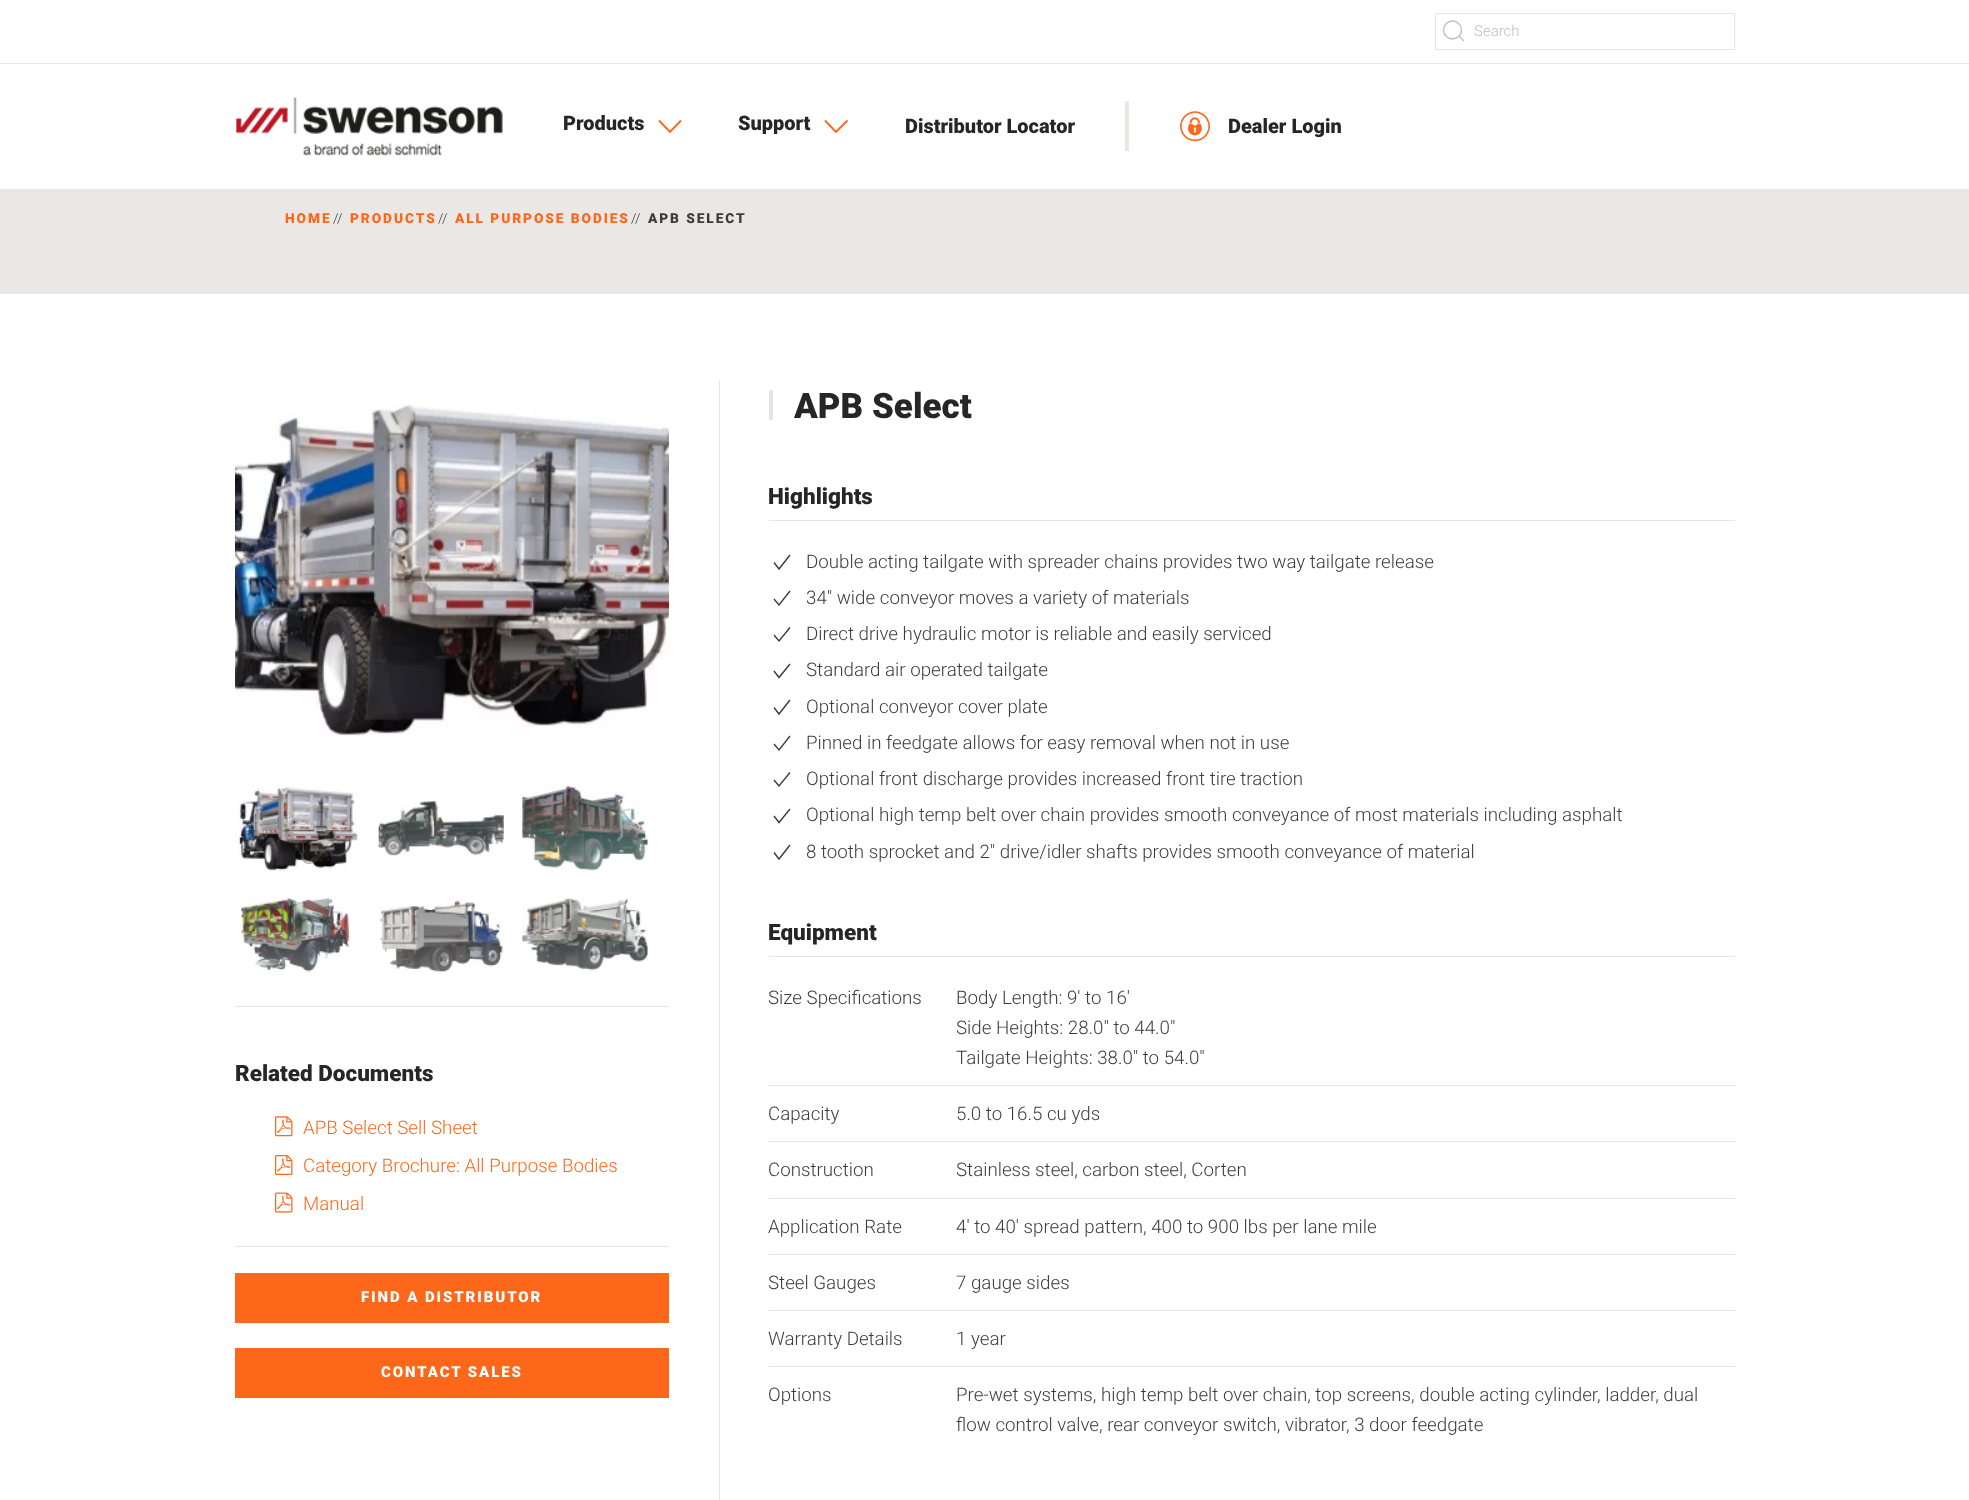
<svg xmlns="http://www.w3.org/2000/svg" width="1969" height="1500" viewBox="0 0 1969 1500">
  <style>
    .t1 { font: 300 15px Roboto; fill: #bfbfbe; }
    .t2 { font: 900 20px Roboto; fill: #262626; }
    .t3 { font: 900 13.75px Roboto; letter-spacing: 1.9px; fill: #fd6719; }
    .t4 { font: 300 13.75px Roboto; fill: #3c3c3c; }
    .t5 { font: 900 13.75px Roboto; letter-spacing: 1.9px; fill: #3c3c3c; }
    .t6 { font: 900 22.5px Roboto; fill: #262626; }
    .t7 { font: 300 18.75px Roboto; fill: #fd6719; }
    .t8 { font: 900 15px Roboto; letter-spacing: 1.9px; fill: #fff; }
    .t9 { font: 900 35px Roboto; fill: #262626; }
    .t10 { font: 300 18.75px Roboto; fill: #3c3c3c; }
  </style>
  <defs>
    <linearGradient id="g1" gradientUnits="userSpaceOnUse" x1="441" y1="781" x2="441" y2="875"><stop offset="0" stop-color="#fff" stop-opacity="0"/><stop offset="1" stop-color="#fff" stop-opacity="0.4"/></linearGradient>
    <linearGradient id="g2" gradientUnits="userSpaceOnUse" x1="585" y1="781" x2="585" y2="875"><stop offset="0" stop-color="#fff" stop-opacity="0"/><stop offset="1" stop-color="#fff" stop-opacity="0.4"/></linearGradient>
    <linearGradient id="g3" gradientUnits="userSpaceOnUse" x1="298" y1="888" x2="298" y2="981"><stop offset="0" stop-color="#fff" stop-opacity="0"/><stop offset="1" stop-color="#fff" stop-opacity="0.4"/></linearGradient>
    <linearGradient id="g4" gradientUnits="userSpaceOnUse" x1="441" y1="888" x2="441" y2="981"><stop offset="0" stop-color="#fff" stop-opacity="0"/><stop offset="1" stop-color="#fff" stop-opacity="0.4"/></linearGradient>
    <linearGradient id="g5" gradientUnits="userSpaceOnUse" x1="585" y1="888" x2="585" y2="981"><stop offset="0" stop-color="#fff" stop-opacity="0"/><stop offset="1" stop-color="#fff" stop-opacity="0.4"/></linearGradient>
  </defs>
  <rect width="100%" height="100%" fill="#fff"/>
  <rect x="0" y="63" width="1969" height="1" fill="#e9e7e5"/>
  <rect x="1435.5" y="13.5" width="299" height="36" fill="none" stroke="#e5e5e5"/>
  <circle cx="1452.5" cy="30" r="9" fill="none" stroke="#bfbfbe" stroke-width="1.4"/>
  <path d="M1459 36L1464 41Z" fill="none" stroke="#bfbfbe" stroke-width="1.4"/>
  <text x="1474" y="36" class="t1">Search</text>
  <image x="236" y="97" width="267" height="59" href="images/1.png"/>
  <text x="563" y="130" class="t2">Products</text>
  <path d="M681 120.5L670 132L659 120.5" fill="none" stroke="#fd6719" stroke-width="1.9"/>
  <text x="738" y="130" class="t2">Support</text>
  <path d="M847.5 120.5L836 132L825 120.5" fill="none" stroke="#fd6719" stroke-width="1.9"/>
  <text x="905" y="133" class="t2">Distributor Locator</text>
  <rect x="1125" y="101" width="4" height="50" fill="#e9e7e5"/>
  <image x="1180" y="111" width="30" height="30" href="images/2.png"/>
  <text x="1228" y="133" class="t2">Dealer Login</text>
  <rect x="0" y="189" width="1969" height="105" fill="#e9e8e6"/>
  <text x="285" y="223" class="t3">HOME</text>
  <text x="333" y="223" class="t4">//</text>
  <text x="350" y="223" class="t3">PRODUCTS</text>
  <text x="438" y="223" class="t4">//</text>
  <text x="455" y="223" class="t3">ALL PURPOSE BODIES</text>
  <text x="631" y="223" class="t4">//</text>
  <text x="648" y="223" class="t5">APB SELECT</text>
  <image x="235" y="404" width="434" height="332" href="images/3.png"/>
  <image x="235" y="786" width="123" height="85" href="images/4.png"/>
  <image x="378" y="801" width="126" height="56" href="images/5.png"/>
  <rect x="379" y="801" width="125" height="55" fill="url(#g1)"/>
  <image x="522" y="782" width="126" height="90" href="images/6.png"/>
  <rect x="523" y="787" width="125" height="84" fill="url(#g2)"/>
  <image x="235" y="897" width="116" height="80" href="images/7.png"/>
  <rect x="241" y="899" width="109" height="77" fill="url(#g3)"/>
  <image x="379" y="899" width="125" height="74" href="images/8.png"/>
  <rect x="380" y="901" width="123" height="71" fill="url(#g4)"/>
  <image x="522" y="898" width="126" height="74" href="images/9.png"/>
  <rect x="523" y="899" width="125" height="72" fill="url(#g5)"/>
  <rect x="235" y="1006" width="434" height="1" fill="#e5e5e5"/>
  <text x="235" y="1081" class="t6">Related Documents</text>
  <image x="275" y="1116" width="18" height="21" href="images/10.png"/>
  <text x="303" y="1134" class="t7">APB Select Sell Sheet</text>
  <image x="275" y="1155" width="18" height="20" href="images/11.png"/>
  <text x="303" y="1172" class="t7">Category Brochure: All Purpose Bodies</text>
  <image x="275" y="1192" width="18" height="21" href="images/12.png"/>
  <text x="303" y="1210" class="t7">Manual</text>
  <rect x="235" y="1246" width="434" height="1" fill="#e5e5e5"/>
  <rect x="235" y="1273" width="434" height="50" fill="#fd6719"/>
  <text x="361" y="1302" class="t8">FIND A DISTRIBUTOR</text>
  <rect x="235" y="1348" width="434" height="50" fill="#fd6719"/>
  <text x="381" y="1377" class="t8">CONTACT SALES</text>
  <rect x="719" y="381" width="1" height="1119" fill="#e5e5e5"/>
  <rect x="769" y="390" width="4" height="30" fill="#e5e5e5"/>
  <text x="794" y="418" class="t9">APB Select</text>
  <rect x="769" y="520" width="966" height="1" fill="#e5e5e5"/>
  <text x="768" y="504" class="t6">Highlights</text>
  <path d="M774 562.5L779 569L790 555" fill="none" stroke="#3c3c3c" stroke-width="1.4"/>
  <text x="806" y="568" class="t10">Double acting tailgate with spreader chains provides two way tailgate release</text>
  <path d="M774 599L779 605L790 591" fill="none" stroke="#3c3c3c" stroke-width="1.4"/>
  <text x="806" y="604" class="t10">34" wide conveyor moves a variety of materials</text>
  <path d="M774 635L779 641L790 627.5" fill="none" stroke="#3c3c3c" stroke-width="1.4"/>
  <text x="806" y="640" class="t10">Direct drive hydraulic motor is reliable and easily serviced</text>
  <path d="M774 671L779 677.5L790 664" fill="none" stroke="#3c3c3c" stroke-width="1.4"/>
  <text x="806" y="676" class="t10">Standard air operated tailgate</text>
  <path d="M774 707.5L779 714L790 700" fill="none" stroke="#3c3c3c" stroke-width="1.4"/>
  <text x="806" y="713" class="t10">Optional conveyor cover plate</text>
  <path d="M774 744L779 750L790 736" fill="none" stroke="#3c3c3c" stroke-width="1.4"/>
  <text x="806" y="749" class="t10">Pinned in feedgate allows for easy removal when not in use</text>
  <path d="M774 780L779 786L790 772.5" fill="none" stroke="#3c3c3c" stroke-width="1.4"/>
  <text x="806" y="785" class="t10">Optional front discharge provides increased front tire traction</text>
  <path d="M774 816L779 822.5L790 809" fill="none" stroke="#3c3c3c" stroke-width="1.4"/>
  <text x="806" y="821" class="t10">Optional high temp belt over chain provides smooth conveyance of most materials including asphalt</text>
  <path d="M774 852.5L779 859L790 845" fill="none" stroke="#3c3c3c" stroke-width="1.4"/>
  <text x="806" y="858" class="t10">8 tooth sprocket and 2" drive/idler shafts provides smooth conveyance of material</text>
  <rect x="769" y="956" width="966" height="1" fill="#e5e5e5"/>
  <text x="768" y="940" class="t6">Equipment</text>
  <text x="768" y="1004" class="t10">Size Specifications</text>
  <text x="956" y="1004" class="t10">Body Length: 9' to 16'</text>
  <text x="956" y="1034" class="t10">Side Heights: 28.0" to 44.0"</text>
  <text x="956" y="1064" class="t10">Tailgate Heights: 38.0" to 54.0"</text>
  <rect x="769" y="1085" width="966" height="1" fill="#e5e5e5"/>
  <text x="768" y="1120" class="t10">Capacity</text>
  <text x="956" y="1120" class="t10">5.0 to 16.5 cu yds</text>
  <rect x="769" y="1141" width="966" height="1" fill="#e5e5e5"/>
  <text x="768" y="1176" class="t10">Construction</text>
  <text x="956" y="1176" class="t10">Stainless steel, carbon steel, Corten</text>
  <rect x="769" y="1198" width="966" height="1" fill="#e5e5e5"/>
  <text x="768" y="1233" class="t10">Application Rate</text>
  <text x="956" y="1233" class="t10">4' to 40' spread pattern, 400 to 900 lbs per lane mile</text>
  <rect x="769" y="1254" width="966" height="1" fill="#e5e5e5"/>
  <text x="768" y="1289" class="t10">Steel Gauges</text>
  <text x="956" y="1289" class="t10">7 gauge sides</text>
  <rect x="769" y="1310" width="966" height="1" fill="#e5e5e5"/>
  <text x="768" y="1345" class="t10">Warranty Details</text>
  <text x="956" y="1345" class="t10">1 year</text>
  <rect x="769" y="1366" width="966" height="1" fill="#e5e5e5"/>
  <text x="768" y="1401" class="t10">Options</text>
  <text x="956" y="1401" class="t10">Pre-wet systems, high temp belt over chain, top screens, double acting cylinder, ladder, dual</text>
  <text x="956" y="1431" class="t10">flow control valve, rear conveyor switch, vibrator, 3 door feedgate</text>
</svg>
